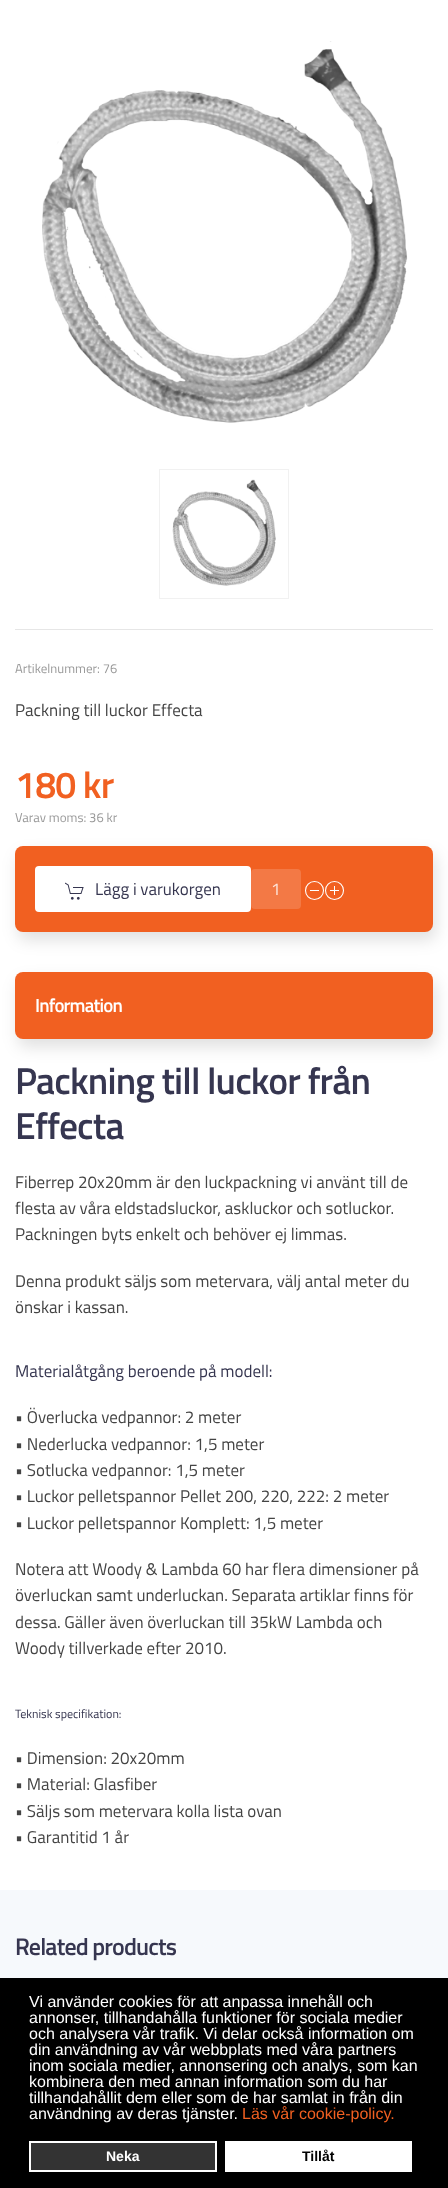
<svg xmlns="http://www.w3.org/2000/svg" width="448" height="2188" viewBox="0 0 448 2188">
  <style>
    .t1 { font: 13px Titillium Web; fill: #999; }
    .t2 { font: 17px Titillium Web; fill: #444; }
    .t3 { font: 600 37.5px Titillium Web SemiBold; letter-spacing: -0.85px; fill: #f16021; }
    .t4 { font: 17px Titillium Web; fill: #363650; }
    .t5 { font: 17px Titillium Web; fill: #fde4da; }
    .t6 { font: 600 19px Titillium Web SemiBold; letter-spacing: -0.85px; fill: #fff; }
    .t7 { font: 600 37.5px Titillium Web SemiBold; letter-spacing: -0.85px; fill: #363650; }
    .t8 { font: 12px Titillium Web; fill: #363650; }
    .t9 { font: 600 24px Titillium Web SemiBold; letter-spacing: -0.85px; fill: #363650; }
    .t10 { font: 16px Liberation Sans; fill: #fff; }
    .t11 { font: 16px Liberation Sans; fill: #f16021; }
    .t12 { font: bold 14px Liberation Sans; fill: #fff; }
    .t13 { font: bold 14px Liberation Sans; fill: #000; }
  </style>
  <rect width="100%" height="100%" fill="#fff"/>
  <image x="42" y="41" width="366" height="382" href="images/1.png"/>
  <rect x="159.5" y="469.5" width="129" height="129" fill="none" stroke="#f1f1f1"/>
  <image x="172" y="479" width="104" height="107" href="images/2.png"/>
  <rect x="15" y="629" width="418" height="1" fill="#e6e6e6"/>
  <text x="15" y="673" class="t1">Artikelnummer: 76</text>
  <text x="15" y="716" class="t2">Packning till luckor Effecta</text>
  <text x="15" y="798" class="t3">180 kr</text>
  <text x="15" y="822" class="t1">Varav moms: 36 kr</text>
  <rect x="18" y="854" width="418" height="86" rx="8" fill="#0000001f" filter="blur(8px)"/>
  <rect x="15" y="846" width="418" height="86" rx="8" fill="#f16021"/>
  <rect x="35" y="866" width="216" height="46" rx="4" fill="#fff"/>
  <image x="65" y="882" width="19" height="18" href="images/3.png"/>
  <text x="95" y="895" class="t4">Lägg i varukorgen</text>
  <rect x="251" y="869" width="50" height="40" rx="4" fill="#f37945"/>
  <text x="271" y="895" class="t5">1</text>
  <circle cx="314.5" cy="890.5" r="9" fill="none" stroke="#fff" stroke-width="1.1"/>
  <rect x="310" y="890" width="9" height="1" fill="#fff"/>
  <circle cx="334.5" cy="890.5" r="9" fill="none" stroke="#fff" stroke-width="1.1"/>
  <rect x="334" y="886" width="1" height="9" fill="#fff"/>
  <rect x="330" y="890" width="9" height="1" fill="#fff"/>
  <rect x="18" y="980" width="418" height="67" rx="8" fill="#0000001f" filter="blur(8px)"/>
  <rect x="15" y="972" width="418" height="67" rx="8" fill="#f16021"/>
  <text x="35" y="1012" class="t6">Information</text>
  <text x="15" y="1094" class="t7">Packning till luckor från</text>
  <text x="15" y="1139" class="t7">Effecta</text>
  <text x="15" y="1188" class="t2">Fiberrep 20x20mm är den luckpackning vi använt till de</text>
  <text x="15" y="1214" class="t2">flesta av våra eldstadsluckor, askluckor och sotluckor.</text>
  <text x="15" y="1240" class="t2">Packningen byts enkelt och behöver ej limmas.</text>
  <text x="15" y="1287" class="t2">Denna produkt säljs som metervara, välj antal meter du</text>
  <text x="15" y="1313" class="t2">önskar i kassan.</text>
  <text x="15" y="1377" class="t4">Materialåtgång beroende på modell:</text>
  <text x="15" y="1423" class="t2">• Överlucka vedpannor: 2 meter</text>
  <text x="15" y="1450" class="t2">• Nederlucka vedpannor: 1,5 meter</text>
  <text x="15" y="1476" class="t2">• Sotlucka vedpannor: 1,5 meter</text>
  <text x="15" y="1502" class="t2">• Luckor pelletspannor Pellet 200, 220, 222: 2 meter</text>
  <text x="15" y="1529" class="t2">• Luckor pelletspannor Komplett: 1,5 meter</text>
  <text x="15" y="1575" class="t2">Notera att Woody &amp; Lambda 60 har flera dimensioner på</text>
  <text x="15" y="1601" class="t2">överluckan samt underluckan. Separata artiklar finns för</text>
  <text x="15" y="1628" class="t2">dessa. Gäller även överluckan till 35kW Lambda och</text>
  <text x="15" y="1654" class="t2">Woody tillverkade efter 2010.</text>
  <text x="15" y="1718" class="t8">Teknisk specifikation:</text>
  <text x="15" y="1764" class="t2">• Dimension: 20x20mm</text>
  <text x="15" y="1790" class="t2">• Material: Glasfiber</text>
  <text x="15" y="1817" class="t2">• Säljs som metervara kolla lista ovan</text>
  <text x="15" y="1843" class="t2">• Garantitid 1 år</text>
  <rect x="0" y="1890" width="448" height="88" fill="#f6f9fc"/>
  <text x="15" y="1955" class="t9">Related products</text>
  <rect x="0" y="1978" width="448" height="210" fill="#000"/>
  <text x="29" y="2007" class="t10">Vi använder cookies för att anpassa innehåll och</text>
  <text x="29" y="2023" class="t10">annonser, tillhandahålla funktioner för sociala medier</text>
  <text x="29" y="2039" class="t10">och analysera vår trafik. Vi delar också information om</text>
  <text x="29" y="2055" class="t10">din användning av vår webbplats med våra partners</text>
  <text x="29" y="2071" class="t10">inom sociala medier, annonsering och analys, som kan</text>
  <text x="29" y="2087" class="t10">kombinera den med annan information som du har</text>
  <text x="29" y="2103" class="t10">tillhandahållit dem eller som de har samlat in från din</text>
  <text x="29" y="2119" class="t10">användning av deras tjänster.</text>
  <text x="242" y="2119" class="t11">Läs vår cookie-policy.</text>
  <rect x="30" y="2142" width="186" height="29" fill="#333" stroke="#fff" stroke-width="2"/>
  <text x="106" y="2161" class="t12">Neka</text>
  <rect x="225" y="2141" width="187" height="31" fill="#fff"/>
  <text x="302" y="2161" class="t13">Tillåt</text>
</svg>
